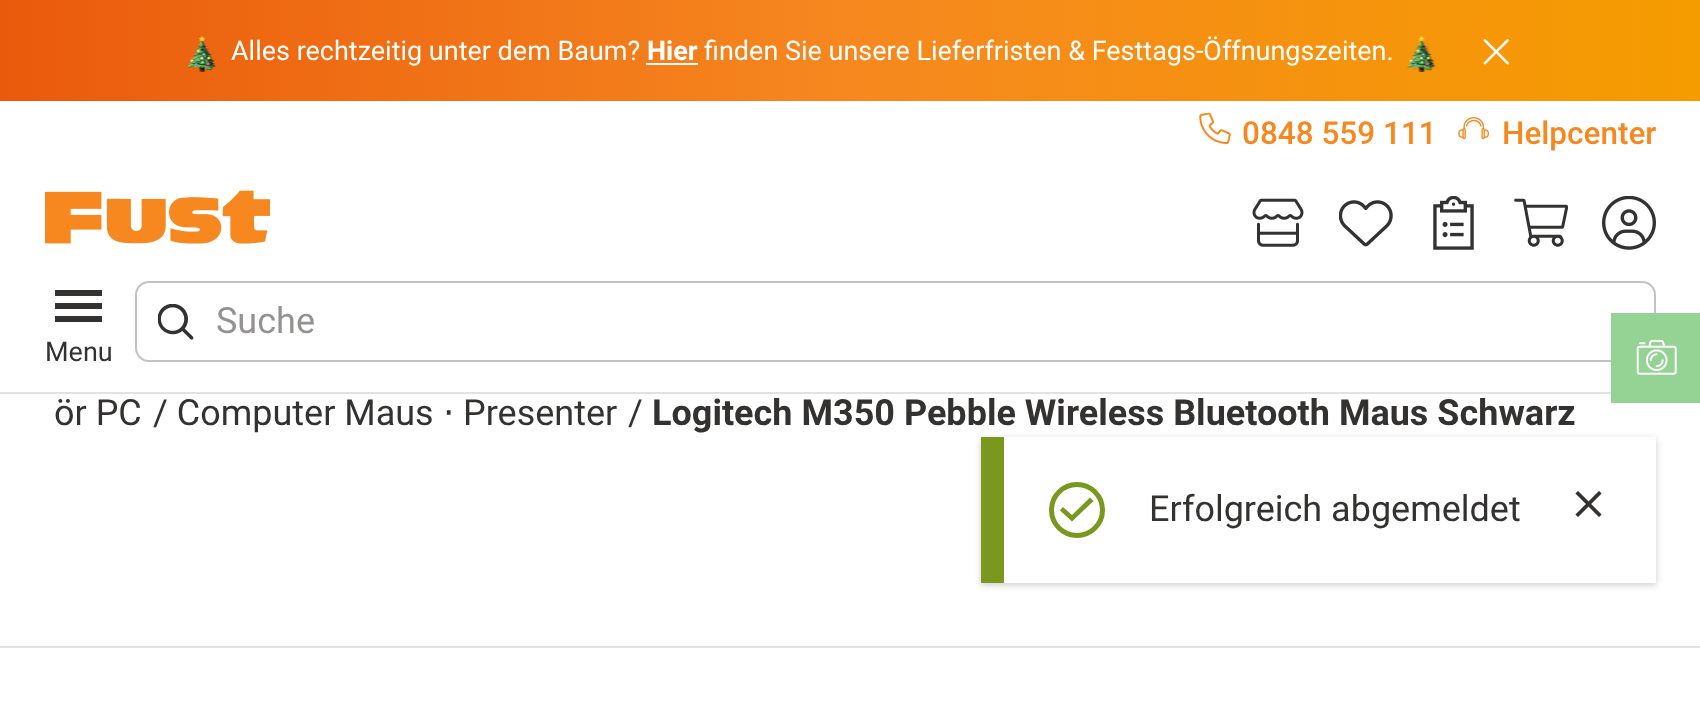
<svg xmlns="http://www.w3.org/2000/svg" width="1700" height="715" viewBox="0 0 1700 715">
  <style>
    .t1 { font: 27px Roboto; fill: #fff; }
    .t2 { font: bold 27px Roboto; fill: #fff; }
    .t3 { font: 500 31.5px Roboto; fill: #f6881f; }
    .t4 { font: 36px Roboto; fill: #939291; }
    .t5 { font: 27px Roboto; fill: #333231; }
    .t6 { font: 36px Roboto; fill: #333231; }
    .t7 { font: 36px DejaVu Sans; fill: #333231; }
    .t8 { font: bold 36px Roboto; fill: #333231; }
  </style>
  <defs>
    <linearGradient id="g1" gradientUnits="userSpaceOnUse" x1="0" y1="51" x2="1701" y2="51"><stop offset="0" stop-color="#ea5a0c"/><stop offset="0.5" stop-color="#f6881f"/><stop offset="1" stop-color="#f59c00"/></linearGradient>
  </defs>
  <rect width="100%" height="100%" fill="#fff"/>
  <rect x="0" y="0" width="1700" height="101" fill="url(#g1)"/>
  <image x="187" y="36" width="29" height="36" href="images/1.png"/>
  <text x="231" y="60" class="t1">Alles rechtzeitig unter dem Baum?</text>
  <text x="647" y="60" class="t2">Hier</text>
  <rect x="646" y="63" width="52" height="2" fill="#fff"/>
  <text x="704" y="60" class="t1">finden Sie unsere Lieferfristen &amp; Festtags-Öffnungszeiten.</text>
  <image x="1406" y="36" width="30" height="36" href="images/2.png"/>
  <image x="1483" y="39" width="26" height="26" href="images/3.png"/>
  <image x="1199" y="113" width="32" height="31" href="images/4.png"/>
  <text x="1242" y="144" class="t3">0848 559 111</text>
  <image x="1458" y="117" width="31" height="23" href="images/5.png"/>
  <text x="1502" y="144" class="t3">Helpcenter</text>
  <image x="45" y="190" width="225" height="54" href="images/6.png"/>
  <rect x="136" y="282" width="1519" height="79" rx="13" fill="none" stroke="#c3c2c1" stroke-width="2"/>
  <image x="158" y="304" width="36" height="36" href="images/7.png"/>
  <text x="216" y="333" class="t4">Suche</text>
  <path d="M55 322V316H102V322ZM55 309V303H102V309ZM55 296V290H102V296Z" fill="#333231"/>
  <text x="45" y="361" class="t5">Menu</text>
  <image x="1252" y="198" width="52" height="49" href="images/8.png"/>
  <image x="1339" y="200" width="54" height="47" href="images/9.png"/>
  <image x="1433" y="196" width="41" height="54" href="images/10.png"/>
  <image x="1514" y="198" width="54" height="49" href="images/11.png"/>
  <image x="1602" y="196" width="54" height="54" href="images/12.png"/>
  <rect x="981" y="439" width="675" height="146" fill="#00000033" filter="blur(3.5px)"/>
  <rect x="1004" y="437" width="652" height="146" fill="#fff"/>
  <rect x="981" y="437" width="23" height="146" fill="#79981d"/>
  <circle cx="1077" cy="510" r="25.5" fill="none" stroke="#79981d" stroke-width="5"/>
  <path d="M1093.5 501L1072 521.5L1060 510.5L1063 507L1072 515L1090 497.5Z" fill="#79981d"/>
  <text x="1149" y="521" class="t6">Erfolgreich abgemeldet</text>
  <image x="1575" y="491" width="27" height="26" href="images/13.png"/>
  <rect x="0" y="392" width="1611" height="2" fill="#e3e2e1"/>
  <rect x="1611" y="313" width="89" height="90" fill="#95d395"/>
  <image x="1636" y="339" width="41" height="36" href="images/14.png"/>
  <text x="54" y="425" class="t6">ör PC</text>
  <text x="153" y="425" class="t6">/ Computer Maus</text>
  <text x="443" y="425" class="t7">⋅</text>
  <text x="463" y="425" class="t6">Presenter</text>
  <text x="628" y="425" class="t6">/</text>
  <text x="652" y="425" class="t8">Logitech M350 Pebble Wireless Bluetooth Maus Schwarz</text>
  <rect x="0" y="646" width="1700" height="2" fill="#e3e2e1"/>
</svg>
